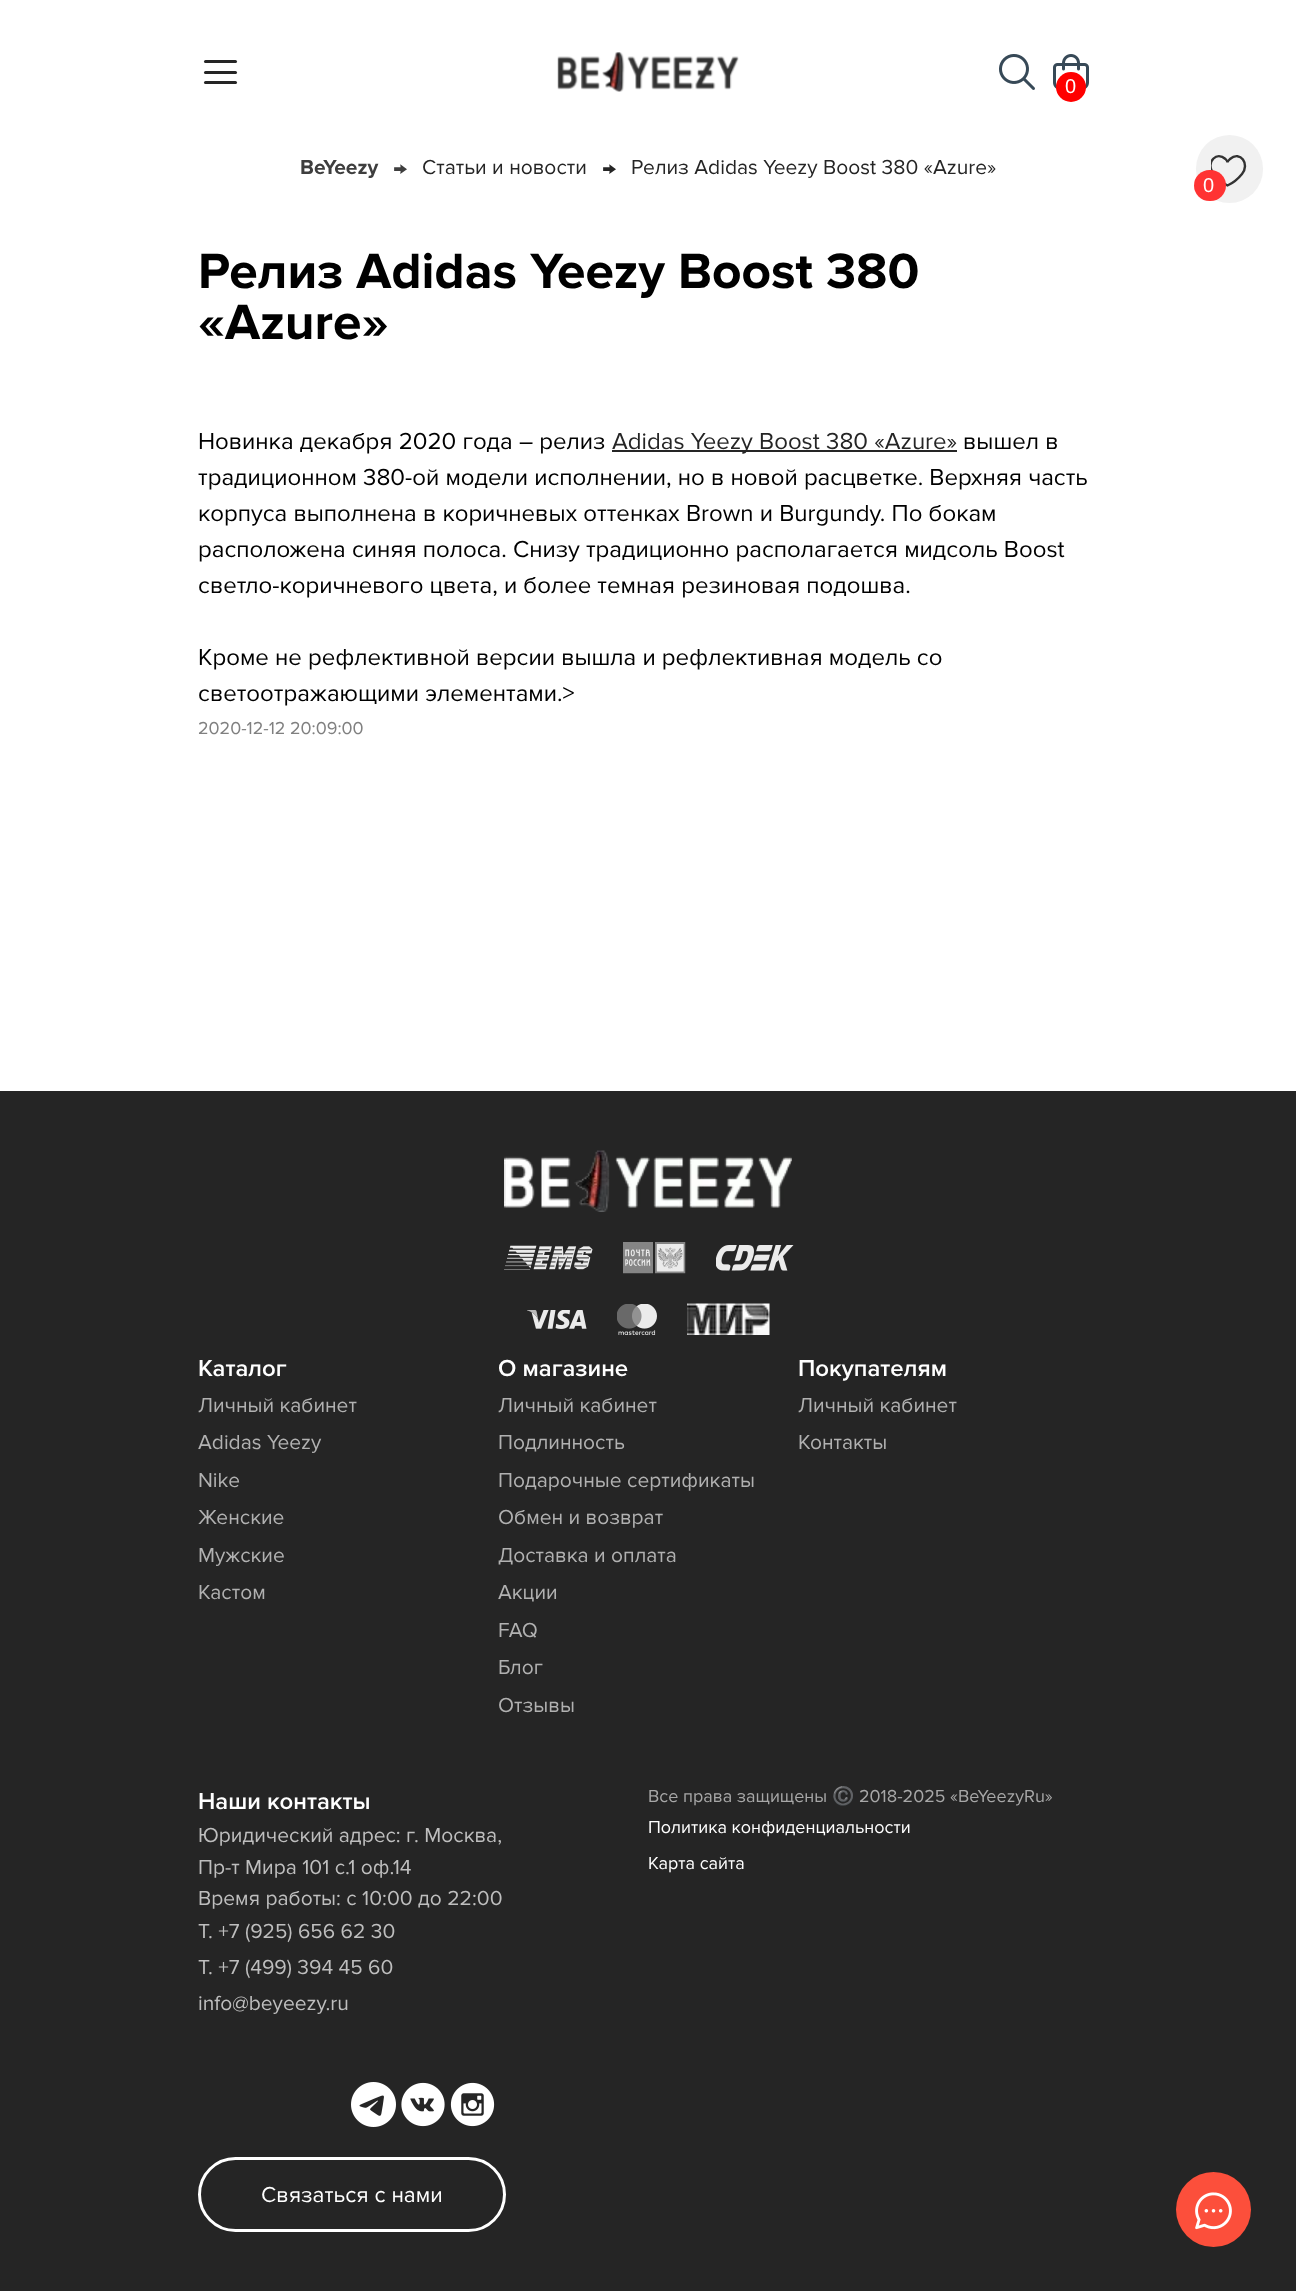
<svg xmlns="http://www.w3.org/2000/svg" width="1296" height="2291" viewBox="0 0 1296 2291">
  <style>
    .t1 { font: 20px Liberation Sans; fill: #fff; }
    .t2 { font: bold 21px Proxima Nova; fill: #3e3e3e; }
    .t3 { font: bold 24px Proxima Nova; fill: #3e3e3e; }
    .t4 { font: 21px Proxima Nova; fill: #252525; }
    .t5 { font: 24px Proxima Nova; fill: #252525; }
    .t6 { font: bold 51.4px Proxima Nova; fill: #000; }
    .t7 { font: 24px Proxima Nova; fill: #000; }
    .t8 { font: 18px Proxima Nova; fill: #808080; }
    .t9 { font: 600 24px Proxima Nova; fill: #fff; }
    .t10 { font: 21px Proxima Nova; fill: #b1b1b1; }
    .t11 { font: 21px Proxima Nova; fill: #bebebe; }
    .t12 { font: 22.5px Proxima Nova; fill: #fff; }
    .t13 { font: 18px Proxima Nova; fill: #a7a7a7; }
    .t14 { font: 18px Noto Color Emoji; fill: #a7a7a7; }
    .t15 { font: 18px Proxima Nova; fill: #fff; }
  </style>
  <defs>
    <clipPath id="clip1"><rect x="1211" y="153" width="36" height="36"/></clipPath>
  </defs>
  <rect width="100%" height="100%" fill="#fff"/>
  <rect x="204" y="60" width="33" height="3" rx="1.5" fill="#252525"/>
  <rect x="204" y="71" width="33" height="3" rx="1.5" fill="#252525"/>
  <rect x="204" y="81" width="33" height="3" rx="1.5" fill="#252525"/>
  <image x="557" y="52" width="182" height="40" href="images/1.png"/>
  <image x="999" y="54" width="36" height="36" href="images/2.png"/>
  <image x="1053" y="54" width="36" height="35" href="images/3.png"/>
  <circle cx="1071" cy="87" r="15" fill="#f00"/>
  <text x="1065" y="93" class="t1">0</text>
  <rect x="1196" y="135" width="67" height="68" rx="33.5" fill="#f1f1f1"/>
  <g clip-path="url(#clip1)">
    <path d="M1242 174C1238 179 1233 183 1227.5 185.5C1222.5 183 1214.5 177 1212 171.5C1207 161.5 1216.5 151 1225.5 159C1226 159.5 1227.5 161 1227.5 162.5C1227.5 161 1229.5 159.5 1230 159C1240.5 150 1250 164.5 1242 174Z" fill="none" stroke="#333" stroke-width="2.4"/>
  </g>
  <rect x="1194" y="170" width="32" height="31" rx="15.5" fill="#f33"/>
  <text x="1203" y="192" class="t1">0</text>
  <rect x="0" y="1091" width="1296" height="1200" fill="#252525"/>
  <circle cx="1213.5" cy="2209.5" r="37.5" fill="#fc4f3b"/>
  <image x="1195" y="2192" width="37" height="38" href="images/4.png"/>
  <text x="300" y="174" class="t2">BeYeezy</text>
  <text x="393" y="176" class="t3">→</text>
  <text x="422" y="174" class="t4">Статьи и новости</text>
  <text x="602" y="176" class="t5">→</text>
  <text x="631" y="174" class="t4">Релиз Adidas Yeezy Boost 380 «Azure»</text>
  <text x="198" y="288" class="t6">Релиз Adidas Yeezy Boost 380</text>
  <text x="198" y="339" class="t6">«Azure»</text>
  <text x="198" y="449" class="t7">Новинка декабря 2020 года – релиз</text>
  <rect x="612" y="450" width="345" height="2" fill="#252525"/>
  <text x="612" y="449" class="t5">Adidas Yeezy Boost 380 «Azure»</text>
  <text x="963" y="449" class="t7">вышел в</text>
  <text x="198" y="485" class="t7">традиционном 380-ой модели исполнении, но в новой расцветке. Верхняя часть</text>
  <text x="198" y="521" class="t7">корпуса выполнена в коричневых оттенках Brown и Burgundy. По бокам</text>
  <text x="198" y="557" class="t7">расположена синяя полоса. Снизу традиционно располагается мидсоль Boost</text>
  <text x="198" y="593" class="t7">светло-коричневого цвета, и более темная резиновая подошва.</text>
  <text x="198" y="665" class="t7">Кроме не рефлективной версии вышла и рефлективная модель со</text>
  <text x="198" y="701" class="t7">светоотражающими элементами.&gt;</text>
  <text x="198" y="734" class="t8">2020-12-12 20:09:00</text>
  <image x="504" y="1150" width="288" height="62" href="images/5.png"/>
  <image x="504" y="1245" width="89" height="25" href="images/6.png"/>
  <image x="623" y="1242" width="63" height="32" href="images/7.png"/>
  <image x="716" y="1245" width="78" height="26" href="images/8.png"/>
  <image x="527" y="1310" width="60" height="19" href="images/9.png"/>
  <image x="617" y="1304" width="40" height="31" href="images/10.png"/>
  <image x="687" y="1303" width="83" height="32" href="images/11.png"/>
  <text x="198" y="1376" class="t9">Каталог</text>
  <text x="198" y="1412" class="t10">Личный кабинет</text>
  <text x="198" y="1449" class="t10">Adidas Yeezy</text>
  <text x="198" y="1487" class="t10">Nike</text>
  <text x="198" y="1524" class="t10">Женские</text>
  <text x="198" y="1562" class="t10">Мужские</text>
  <text x="198" y="1599" class="t10">Кастом</text>
  <text x="498" y="1376" class="t9">О магазине</text>
  <text x="498" y="1412" class="t10">Личный кабинет</text>
  <text x="498" y="1449" class="t10">Подлинность</text>
  <text x="498" y="1487" class="t10">Подарочные сертификаты</text>
  <text x="498" y="1524" class="t10">Обмен и возврат</text>
  <text x="498" y="1562" class="t10">Доставка и оплата</text>
  <text x="498" y="1599" class="t10">Акции</text>
  <text x="498" y="1637" class="t10">FAQ</text>
  <text x="498" y="1674" class="t10">Блог</text>
  <text x="498" y="1712" class="t10">Отзывы</text>
  <text x="798" y="1376" class="t9">Покупателям</text>
  <text x="798" y="1412" class="t10">Личный кабинет</text>
  <text x="798" y="1449" class="t10">Контакты</text>
  <text x="198" y="1809" class="t9">Наши контакты</text>
  <text x="198" y="1842" class="t11">Юридический адрес: г. Москва,</text>
  <text x="198" y="1874" class="t11">Пр-т Мира 101 с.1 оф.14</text>
  <text x="198" y="1905" class="t11">Время работы: с 10:00 до 22:00</text>
  <text x="198" y="1938" class="t11">Т. +7 (925) 656 62 30</text>
  <text x="198" y="1974" class="t11">Т. +7 (499) 394 45 60</text>
  <text x="198" y="2010" class="t11">info@beyeezy.ru</text>
  <image x="351" y="2082" width="45" height="45" href="images/12.png"/>
  <image x="401" y="2082" width="44" height="45" href="images/13.png"/>
  <image x="450" y="2082" width="45" height="45" href="images/14.png"/>
  <rect x="199.5" y="2158.5" width="305" height="72" rx="36" fill="none" stroke="#fff" stroke-width="3"/>
  <text x="261" y="2202" class="t12">Связаться с нами</text>
  <text x="648" y="1802" class="t13">Все права защищены</text>
  <text x="832" y="1802" class="t14">©️</text>
  <text x="859" y="1802" class="t13">2018-2025 «BeYeezyRu»</text>
  <text x="648" y="1833" class="t15">Политика конфиденциальности</text>
  <text x="648" y="1869" class="t15">Карта сайта</text>
</svg>
